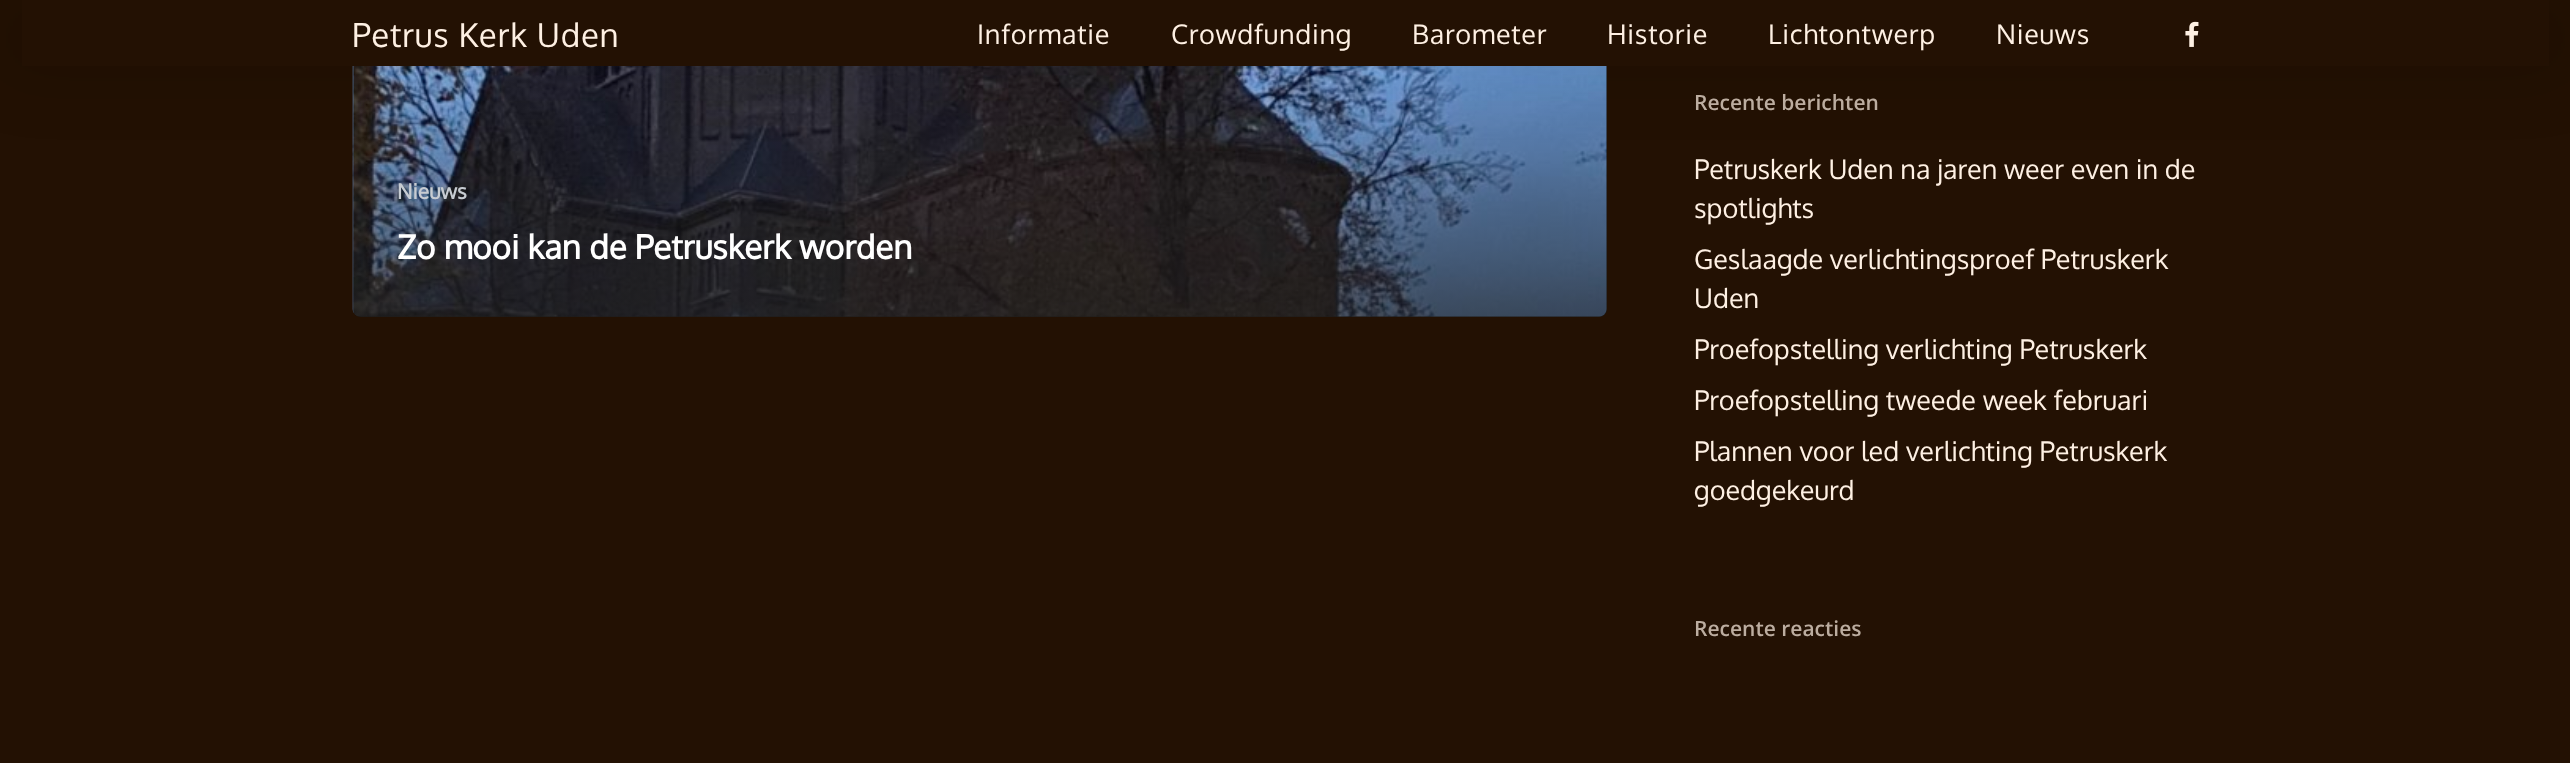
<svg xmlns="http://www.w3.org/2000/svg" width="2570" height="763" viewBox="0 0 2570 763">
  <style>
    .t1 { font: 33px Oxygen; letter-spacing: 0.75px; fill: #fef0e3; }
    .t2 { font: 27px Oxygen; letter-spacing: 0.75px; fill: #fef0e3; }
    .t3 { font: bold 21px Oxygen; fill: #c7ccd2; }
    .t4 { font: bold 33px Oxygen; fill: #fff; }
    .t5 { font: 600 21px Open Sans; fill: #bcada0; }
    .t6 { font: 27px Oxygen; fill: #fef0e3; }
  </style>
  <defs>
    <linearGradient id="g1" gradientUnits="userSpaceOnUse" x1="983" y1="30" x2="983" y2="318"><stop offset="0" stop-color="#232323" stop-opacity="0"/><stop offset="1" stop-color="#232323" stop-opacity="0.65"/></linearGradient>
  </defs>
  <rect width="100%" height="100%" fill="#231103"/>
  <rect x="353" y="-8" width="1254" height="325" rx="8" fill="#190c02"/>
  <image x="352" y="66" width="1255" height="251" href="images/2.png"/>
  <path d="M353 30H1607V309C1607 313.5 1603.5 317 1599 317H361C356.5 317 353 313.5 353 309Z" fill="url(#g1)"/>
  <rect x="0" y="5" width="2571" height="66" fill="#00000026" filter="blur(34px)"/>
  <rect x="22" y="0" width="2527" height="66" fill="#231103"/>
  <text x="352" y="47" class="t1">Petrus Kerk Uden</text>
  <text x="977" y="44" class="t2">Informatie</text>
  <text x="1171" y="44" class="t2">Crowdfunding</text>
  <text x="1412" y="44" class="t2">Barometer</text>
  <text x="1607" y="44" class="t2">Historie</text>
  <text x="1768" y="44" class="t2">Lichtontwerp</text>
  <text x="1996" y="44" class="t2">Nieuws</text>
  <image x="2185" y="21" width="14" height="26" href="images/1.png"/>
  <text x="397" y="199" class="t3">Nieuws</text>
  <text x="397" y="259" class="t4">Zo mooi kan de Petruskerk worden</text>
  <text x="1694" y="110" class="t5">Recente berichten</text>
  <text x="1694" y="179" class="t6">Petruskerk Uden na jaren weer even in de</text>
  <text x="1694" y="218" class="t6">spotlights</text>
  <text x="1694" y="269" class="t6">Geslaagde verlichtingsproef Petruskerk</text>
  <text x="1694" y="308" class="t6">Uden</text>
  <text x="1694" y="359" class="t6">Proefopstelling verlichting Petruskerk</text>
  <text x="1694" y="410" class="t6">Proefopstelling tweede week februari</text>
  <text x="1694" y="461" class="t6">Plannen voor led verlichting Petruskerk</text>
  <text x="1694" y="500" class="t6">goedgekeurd</text>
  <text x="1694" y="636" class="t5">Recente reacties</text>
</svg>
